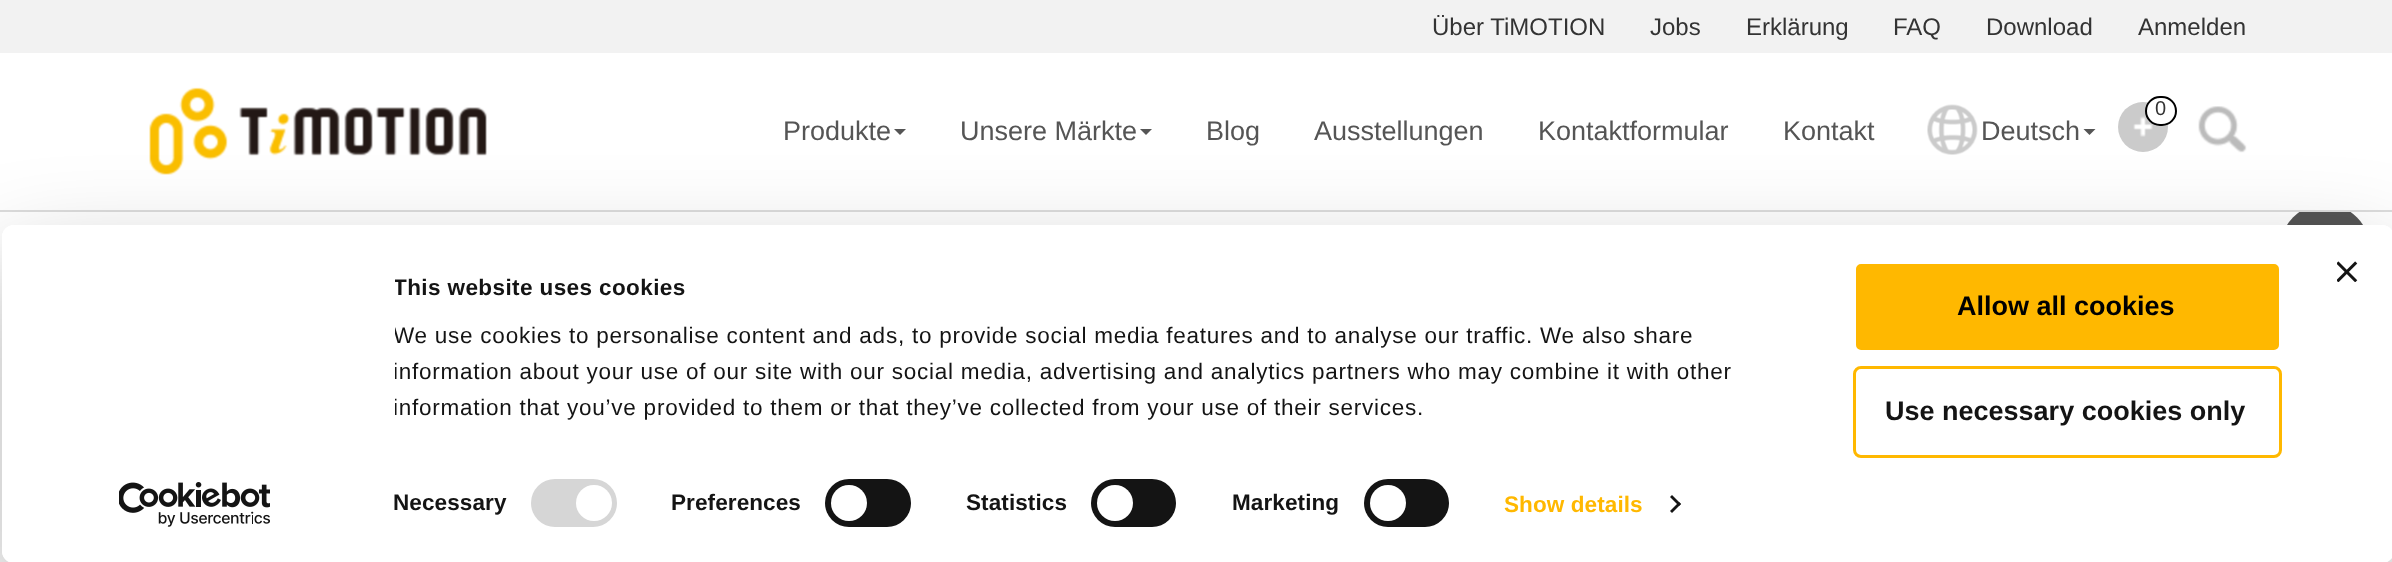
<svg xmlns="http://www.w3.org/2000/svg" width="2392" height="562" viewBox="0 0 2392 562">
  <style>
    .t1 { font: 24px Liberation Sans; fill: #333; }
    .t2 { font: 27px Liberation Sans; fill: #555; }
    .t3 { font: 20px Liberation Sans; fill: #333; }
    .t4 { font: bold 22.5px Liberation Sans; letter-spacing: 0.4px; fill: #141414; }
    .t5 { font: 22.5px Liberation Sans; letter-spacing: 0.75px; fill: #141414; }
    .t6 { font: bold 22.5px Liberation Sans; letter-spacing: 0.1px; fill: #141414; }
    .t7 { font: bold 22.5px Liberation Sans; letter-spacing: 0.1px; fill: #ffb800; }
    .t8 { font: bold 27px Liberation Sans; fill: #000; }
    .t9 { font: bold 27px Liberation Sans; fill: #141414; }
  </style>
  <defs>
    <clipPath id="clip1"><path d="M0 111H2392V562H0ZM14 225H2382C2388.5 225 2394 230.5 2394 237V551C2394 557.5 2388.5 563 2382 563H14C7.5 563 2 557.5 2 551V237C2 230.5 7.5 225 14 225Z" clip-rule="evenodd"/></clipPath>
    <clipPath id="clip2"><rect x="395" y="270" width="1414" height="155"/></clipPath>
  </defs>
  <rect width="100%" height="100%" fill="#fff"/>
  <rect x="0" y="0" width="2392" height="53" fill="#f2f2f2"/>
  <text x="1432" y="35" class="t1">Über TiMOTION</text>
  <text x="1650" y="35" class="t1">Jobs</text>
  <text x="1746" y="35" class="t1">Erklärung</text>
  <text x="1893" y="35" class="t1">FAQ</text>
  <text x="1986" y="35" class="t1">Download</text>
  <text x="2138" y="35" class="t1">Anmelden</text>
  <circle cx="2325" cy="249" r="45" fill="#555"/>
  <rect x="2302" y="204" width="46" height="6" fill="#fff"/>
  <rect x="0" y="210" width="2392" height="2" fill="#ddd"/>
  <image x="149" y="87" width="338" height="88" href="images/1.png"/>
  <text x="783" y="140" class="t2">Produkte</text>
  <path d="M894 129H906L900 135Z" fill="#555"/>
  <text x="960" y="140" class="t2">Unsere Märkte</text>
  <path d="M1140 129H1152L1146 135Z" fill="#555"/>
  <text x="1206" y="140" class="t2">Blog</text>
  <text x="1314" y="140" class="t2">Ausstellungen</text>
  <text x="1538" y="140" class="t2">Kontaktformular</text>
  <text x="1783" y="140" class="t2">Kontakt</text>
  <image x="1927" y="104" width="51" height="51" href="images/2.png"/>
  <text x="1981" y="140" class="t2">Deutsch</text>
  <path d="M2083.5 129H2095.5L2089.5 135Z" fill="#555"/>
  <circle cx="2143" cy="127" r="25" fill="#cbcbcb"/>
  <image x="2133" y="116" width="20" height="21" href="images/3.png"/>
  <rect x="2146" y="97" width="30" height="28" rx="14" fill="#fff" stroke="#000" stroke-width="2"/>
  <text x="2155" y="115" class="t3">0</text>
  <image x="2198" y="106" width="49" height="47" href="images/4.png"/>
  <g clip-path="url(#clip1)">
    <rect x="2" y="270" width="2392" height="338" rx="12" fill="#0000004d" filter="blur(52.5px)"/>
  </g>
  <rect x="2" y="225" width="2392" height="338" rx="12" fill="#fff"/>
  <image x="2337" y="261" width="21" height="21" href="images/5.png"/>
  <g clip-path="url(#clip2)">
    <text x="393" y="295" class="t4">This website uses cookies</text>
    <text x="393" y="343" class="t5">We use cookies to personalise content and ads, to provide social media features and to analyse our traffic. We also share</text>
    <text x="393" y="379" class="t5">information about your use of our site with our social media, advertising and analytics partners who may combine it with other</text>
    <text x="393" y="415" class="t5">information that you’ve provided to them or that they’ve collected from your use of their services.</text>
  </g>
  <text x="393" y="510" class="t6">Necessary</text>
  <rect x="531" y="479" width="86" height="48" rx="24" fill="#d6d6d6"/>
  <circle cx="594" cy="503" r="18" fill="#fff"/>
  <text x="671" y="510" class="t6">Preferences</text>
  <rect x="825" y="479" width="86" height="48" rx="24" fill="#141414"/>
  <circle cx="849" cy="503" r="18" fill="#fff"/>
  <text x="966" y="510" class="t6">Statistics</text>
  <rect x="1091" y="479" width="85" height="48" rx="24" fill="#141414"/>
  <circle cx="1115" cy="503" r="18" fill="#fff"/>
  <text x="1232" y="510" class="t6">Marketing</text>
  <rect x="1364" y="479" width="85" height="48" rx="24" fill="#141414"/>
  <circle cx="1388" cy="503" r="18" fill="#fff"/>
  <text x="1504" y="512" class="t7">Show details</text>
  <path d="M1672 495L1681 504L1679 506L1670 497Z" fill="#141414"/>
  <path d="M1679 502L1681 504L1672 513L1670 511Z" fill="#141414"/>
  <rect x="1854.5" y="262.5" width="426" height="89" rx="6.5" fill="#ffb800" stroke="#fff" stroke-width="3"/>
  <text x="1957" y="315" class="t8">Allow all cookies</text>
  <rect x="1854.5" y="367.5" width="426" height="89" rx="6.5" fill="none" stroke="#ffb800" stroke-width="3"/>
  <text x="1885" y="420" class="t9">Use necessary cookies only</text>
  <image x="119" y="482" width="151" height="45" href="images/6.png"/>
</svg>
